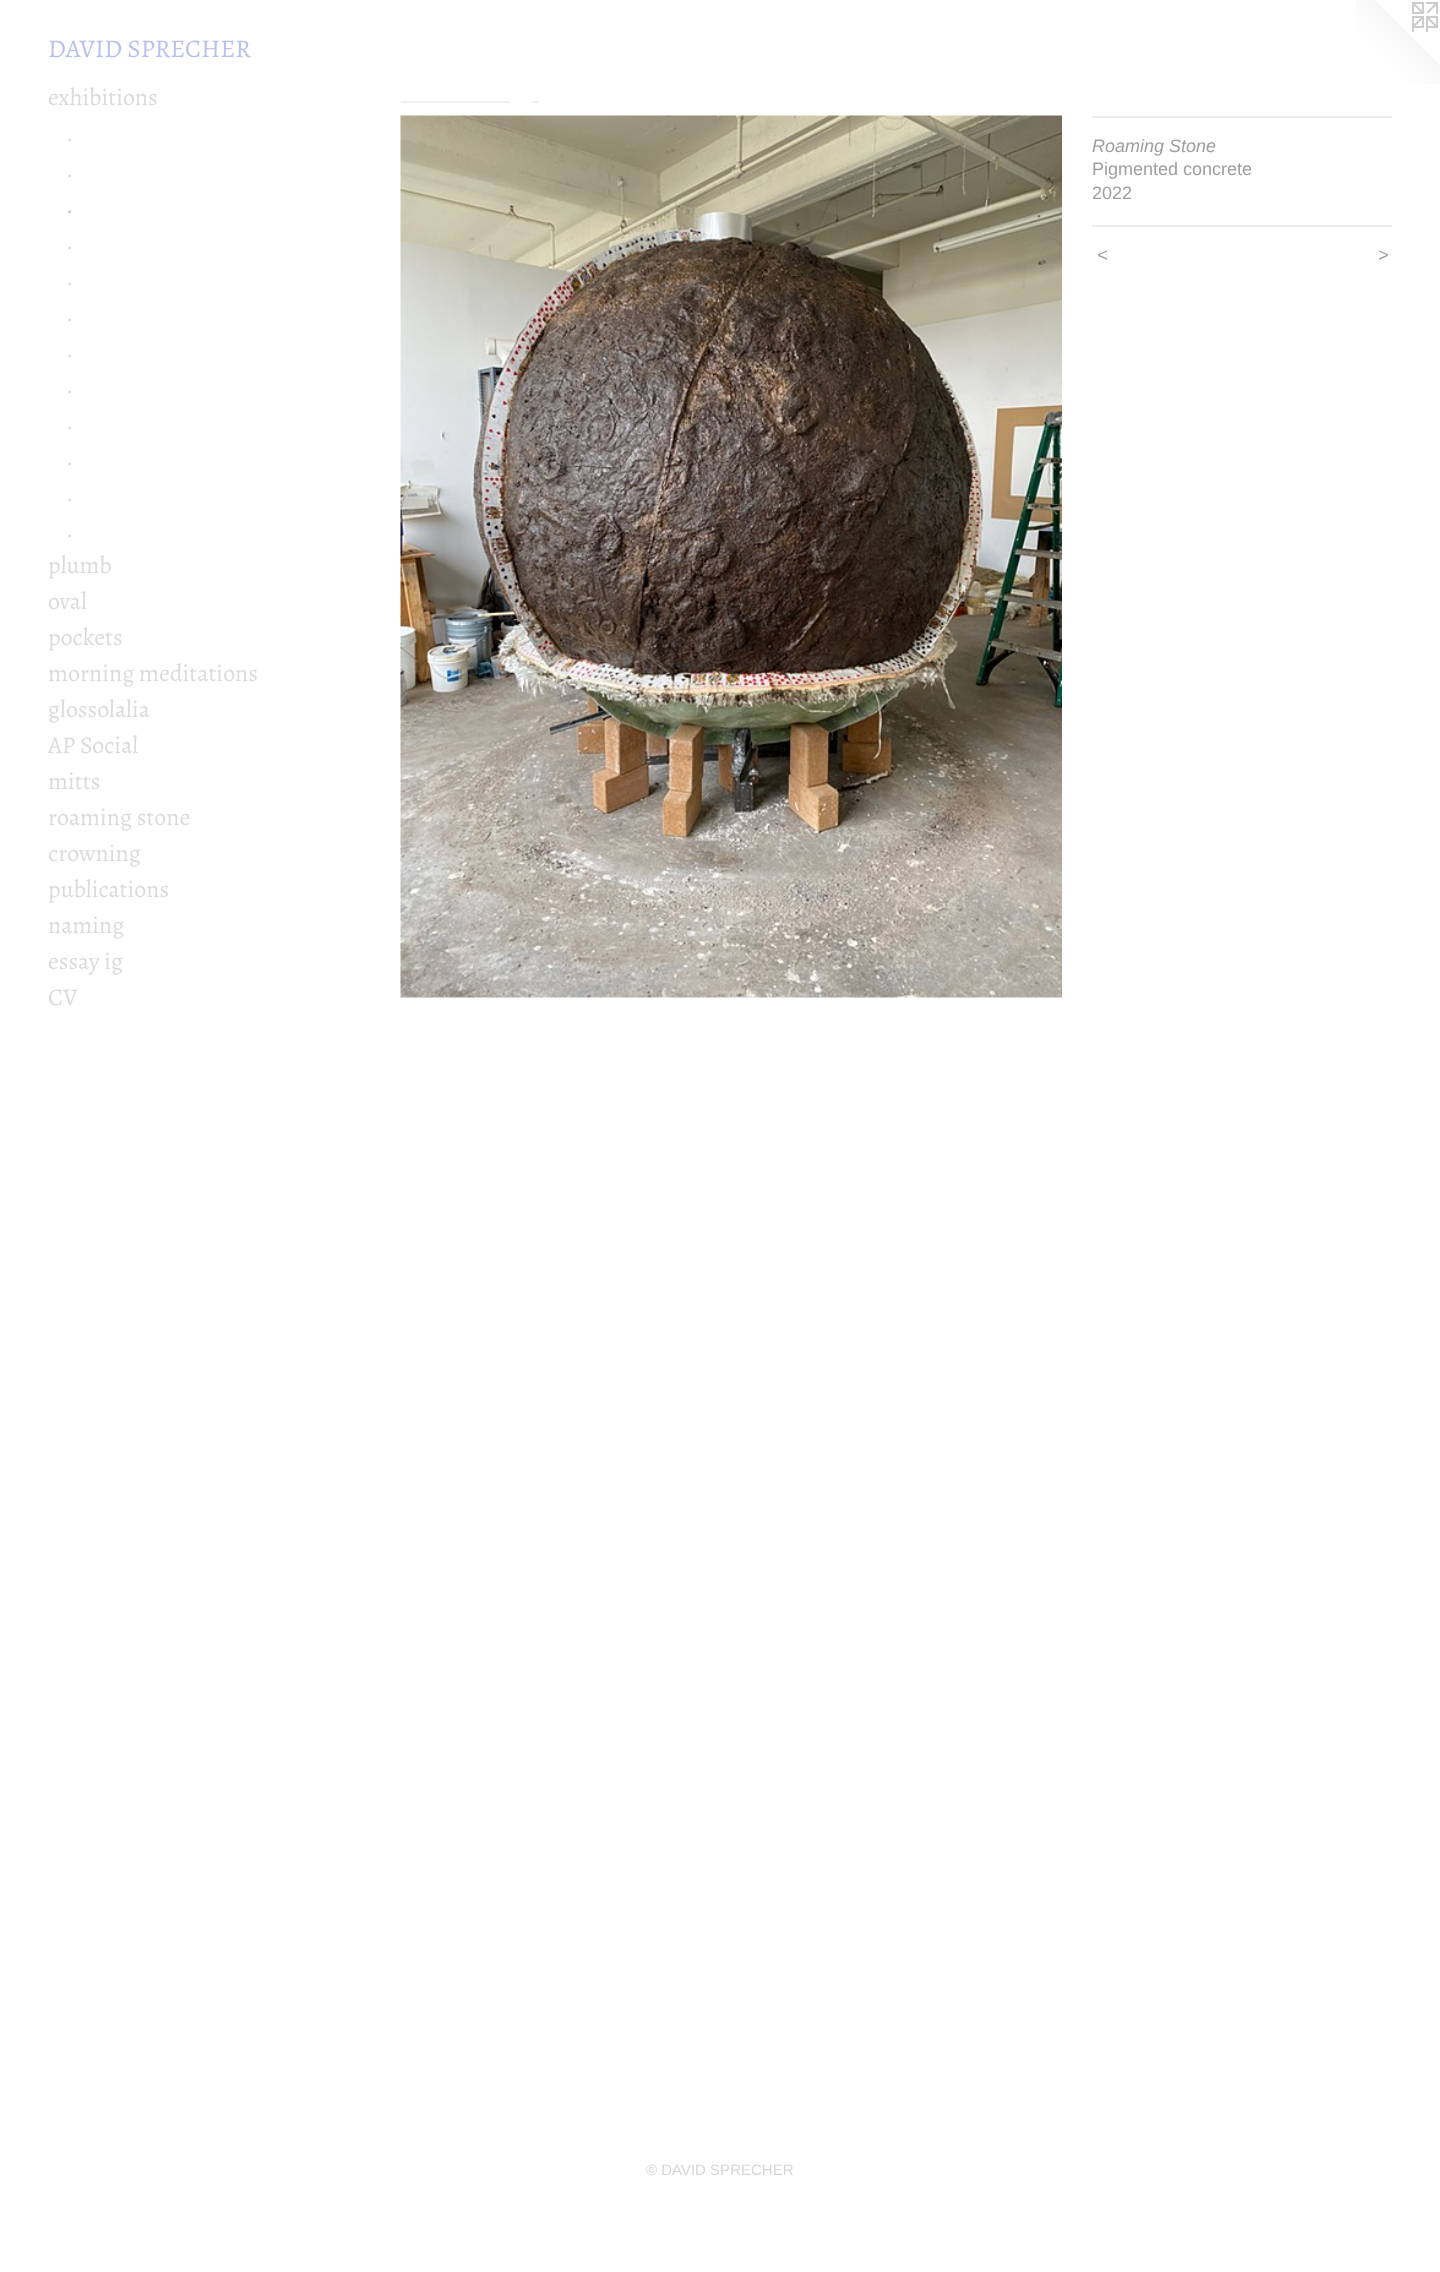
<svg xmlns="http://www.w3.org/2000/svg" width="1440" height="2272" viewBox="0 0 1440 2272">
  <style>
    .t1 { font: 25.5px Alegreya; fill: #b9c0ee; }
    .t2 { font: 24px Alegreya; fill: #dbdbdc; }
    .t3 { font: 24px Alegreya; fill: #c1c1c3; }
    .t4 { font: italic 18px Liberation Sans; fill: #9e9e9e; }
    .t5 { font: 18px Liberation Sans; fill: #9e9e9e; }
    .t6 { font: italic 18px Liberation Sans; letter-spacing: 2px; fill: #9e9e9e; }
    .t7 { font: 15px Liberation Sans; fill: #d6d6d6; }
  </style>
  <rect width="100%" height="100%" fill="#fff"/>
  <text x="48" y="57" class="t1">DAVID SPRECHER</text>
  <image x="1356" y="0" width="84" height="84" href="images/1.png"/>
  <text x="48" y="105" class="t2">exhibitions</text>
  <text x="66" y="141" class="t2">.</text>
  <text x="66" y="177" class="t2">.</text>
  <text x="66" y="213" class="t3">.</text>
  <text x="66" y="249" class="t2">.</text>
  <text x="66" y="285" class="t2">.</text>
  <text x="66" y="321" class="t2">.</text>
  <text x="66" y="357" class="t2">.</text>
  <text x="66" y="393" class="t2">.</text>
  <text x="66" y="429" class="t2">.</text>
  <text x="66" y="465" class="t2">.</text>
  <text x="66" y="501" class="t2">.</text>
  <text x="66" y="537" class="t2">.</text>
  <text x="48" y="573" class="t2">plumb</text>
  <text x="48" y="609" class="t2">oval</text>
  <text x="48" y="645" class="t2">pockets</text>
  <text x="48" y="681" class="t2">morning meditations</text>
  <text x="48" y="717" class="t2">glossolalia</text>
  <text x="48" y="753" class="t2">AP Social</text>
  <text x="48" y="789" class="t2">mitts</text>
  <text x="48" y="825" class="t2">roaming stone</text>
  <text x="48" y="861" class="t2">crowning</text>
  <text x="48" y="897" class="t2">publications</text>
  <text x="48" y="933" class="t2">naming</text>
  <text x="48" y="969" class="t2">essay ig</text>
  <text x="48" y="1005" class="t2">CV</text>
  <rect x="401" y="101" width="109" height="2" fill="#f0f0f0"/>
  <rect x="531" y="101" width="8" height="2" fill="#f0f0f0"/>
  <image x="400" y="115" width="662" height="883" href="images/2.png"/>
  <rect x="1092" y="116" width="300" height="2" fill="#ececec"/>
  <text x="1092" y="152" class="t4">Roaming Stone</text>
  <text x="1092" y="175" class="t5">Pigmented concrete</text>
  <text x="1092" y="199" class="t5">2022</text>
  <rect x="1092" y="225" width="300" height="2" fill="#ececec"/>
  <text x="1097" y="261" class="t6">&lt;</text>
  <text x="1378" y="261" class="t6">&gt;</text>
  <text x="646" y="2175" class="t7">© DAVID SPRECHER</text>
</svg>
